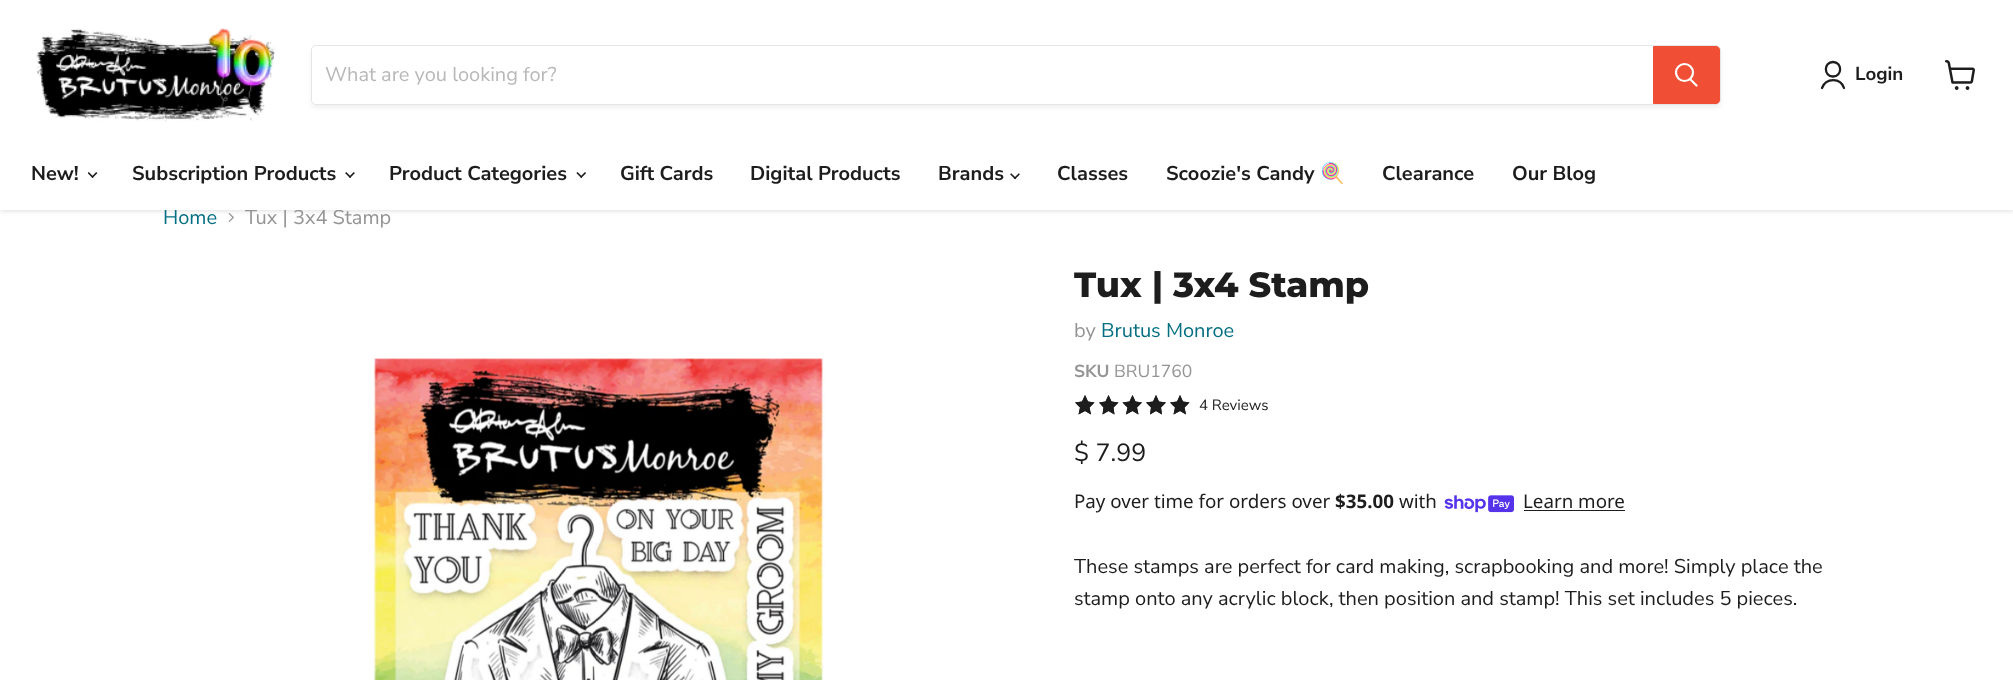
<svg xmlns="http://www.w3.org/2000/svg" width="2013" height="680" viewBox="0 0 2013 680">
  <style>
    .t1 { font: 20px Nunito Sans; fill: #046e82; }
    .t2 { font: 20px Nunito Sans; fill: #949494; }
    .t3 { font: 20px Nunito Sans; fill: #b8b8b8; }
    .t4 { font: bold 18.75px Nunito Sans; fill: #1d1d1d; }
    .t5 { font: bold 20px Nunito Sans; fill: #1d1d1d; }
    .t6 { font: bold 20px Noto Color Emoji; fill: #1d1d1d; }
    .t7 { font: 800 35px Montserrat; fill: #1d1d1d; }
    .t8 { font: bold 17.5px Nunito Sans; fill: #949494; }
    .t9 { font: 17.5px Nunito Sans; fill: #949494; }
    .t10 { font: 15px Nunito Sans; fill: #1d1d1d; }
    .t11 { font: 25px Nunito Sans; fill: #1d1d1d; }
    .t12 { font: 18.75px Noto Sans; fill: #1d1d1d; }
    .t13 { font: bold 18.75px Noto Sans; fill: #1d1d1d; }
    .t14 { font: 20px Nunito Sans; fill: #1d1d1d; }
  </style>
  <defs>
    <clipPath id="clip1"><path d="M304 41H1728V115H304ZM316 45H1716C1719 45 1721 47 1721 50V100C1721 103 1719 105 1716 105H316C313 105 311 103 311 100V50C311 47 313 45 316 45Z" clip-rule="evenodd"/></clipPath>
    <clipPath id="clip2"><path d="M1085 395L1088 401.5L1094.5 402.5L1089.5 407.5L1091 414.5L1085 411L1078.5 414.5L1080 407.5L1075 402.5L1082 401.5Z"/></clipPath>
    <clipPath id="clip3"><path d="M1108.5 395L1111.5 401.5L1118.5 402.5L1113.5 407.5L1114.5 414.5L1108.5 411L1102.5 414.5L1103.5 407.5L1099 402.5L1105.5 401.5Z"/></clipPath>
    <clipPath id="clip4"><path d="M1132.5 395L1135.5 401.5L1142 402.5L1137 407.5L1138.5 414.5L1132.5 411L1126 414.5L1127.5 407.5L1122.5 402.5L1129.5 401.5Z"/></clipPath>
    <clipPath id="clip5"><path d="M1156 395L1159 401.5L1166 402.5L1161 407.5L1162 414.5L1156 411L1150 414.5L1151 407.5L1146 402.5L1153 401.5Z"/></clipPath>
    <clipPath id="clip6"><path d="M1180 395L1183 401.5L1189.5 402.5L1184.5 407.5L1186 414.5L1180 411L1173.5 414.5L1175 407.5L1170 402.5L1177 401.5Z"/></clipPath>
  </defs>
  <rect width="100%" height="100%" fill="#fff"/>
  <image x="228" y="213" width="6" height="9" href="images/7.png"/>
  <rect x="0" y="1" width="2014" height="210" fill="#80808040" filter="blur(2.5px)"/>
  <text x="163" y="224" class="t1">Home</text>
  <text x="245" y="224" class="t2">Tux | 3x4 Stamp</text>
  <rect x="0" y="0" width="2013" height="210" fill="#fff"/>
  <image x="36" y="28" width="240" height="94" href="images/1.png"/>
  <g clip-path="url(#clip1)">
    <rect x="311" y="48" width="1410" height="60" rx="5" fill="#8080801c" filter="blur(2px)"/>
  </g>
  <rect x="311.5" y="45.5" width="1409" height="59" rx="4.5" fill="none" stroke="#80808033"/>
  <text x="325" y="81" class="t3">What are you looking for?</text>
  <path d="M1653.5 46.5H1716C1718 46.5 1719.5 48 1719.5 50V100C1719.5 102 1718 103.5 1716 103.5H1653.5Z" fill="#f04f36" stroke="#f04f36"/>
  <path d="M1696.5 85.5L1690.5 79.5" fill="none" stroke="#fff" stroke-width="2.2" stroke-linecap="round"/>
  <circle cx="1684.5" cy="72.5" r="8.5" fill="none" stroke="#fff" stroke-width="2.2"/>
  <path d="M1833 76.5C1842.5 76.5 1842.5 62 1833 62C1823.5 62 1823.5 76.5 1833 76.5ZM1844 88C1840.5 77.5 1826 77.5 1822 88" fill="none" stroke="#1d1d1d" stroke-width="2.3" stroke-linecap="round" stroke-linejoin="round"/>
  <text x="1855" y="80" class="t4">Login</text>
  <image x="1945" y="60" width="30" height="30" href="images/2.png"/>
  <text x="31" y="180" class="t5">New!</text>
  <image x="88" y="172" width="10" height="6" href="images/3.png"/>
  <text x="132" y="180" class="t5">Subscription Products</text>
  <image x="345" y="172" width="10" height="6" href="images/4.png"/>
  <text x="389" y="180" class="t5">Product Categories</text>
  <image x="576" y="172" width="10" height="6" href="images/5.png"/>
  <text x="620" y="180" class="t5">Gift Cards</text>
  <text x="750" y="180" class="t5">Digital Products</text>
  <text x="938" y="180" class="t5">Brands</text>
  <image x="1010" y="173" width="10" height="7" href="images/6.png"/>
  <text x="1057" y="180" class="t5">Classes</text>
  <text x="1166" y="180" class="t5">Scoozie's Candy</text>
  <text x="1320" y="180" class="t6">🍭</text>
  <text x="1382" y="180" class="t5">Clearance</text>
  <text x="1512" y="180" class="t5">Our Blog</text>
  <image x="373" y="358" width="452" height="322" href="images/8.png"/>
  <text x="1074" y="297" class="t7">Tux | 3x4 Stamp</text>
  <text x="1074" y="337" class="t2">by</text>
  <text x="1101" y="337" class="t1">Brutus Monroe</text>
  <text x="1074" y="377" class="t8">SKU</text>
  <text x="1114" y="377" class="t9">BRU1760</text>
  <path d="M1085 395L1082 401.5L1075 402.5L1080 407.5L1078.5 414.5L1085 411L1091 414.5L1089.5 407.5L1094.5 402.5L1088 401.5Z" fill="#1d1d1d"/>
  <g clip-path="url(#clip2)">
    <path d="M1085 395L1088 401.5L1094.5 402.5L1089.5 407.5L1091 414.5L1085 411L1078.5 414.5L1080 407.5L1075 402.5L1082 401.5Z" fill="none" stroke="#1d1d1d" stroke-width="2.8" stroke-linecap="round" stroke-linejoin="round"/>
  </g>
  <path d="M1108.5 395L1105.5 401.5L1099 402.5L1103.5 407.5L1102.5 414.5L1108.5 411L1114.5 414.5L1113.5 407.5L1118.5 402.5L1111.5 401.5Z" fill="#1d1d1d"/>
  <g clip-path="url(#clip3)">
    <path d="M1108.5 395L1111.5 401.5L1118.5 402.5L1113.5 407.5L1114.5 414.5L1108.5 411L1102.5 414.5L1103.5 407.5L1099 402.5L1105.5 401.5Z" fill="none" stroke="#1d1d1d" stroke-width="2.8" stroke-linecap="round" stroke-linejoin="round"/>
  </g>
  <path d="M1132.5 395L1129.5 401.5L1122.5 402.5L1127.5 407.5L1126 414.5L1132.5 411L1138.5 414.5L1137 407.5L1142 402.5L1135.5 401.5Z" fill="#1d1d1d"/>
  <g clip-path="url(#clip4)">
    <path d="M1132.5 395L1135.5 401.5L1142 402.5L1137 407.5L1138.5 414.5L1132.5 411L1126 414.5L1127.5 407.5L1122.5 402.5L1129.5 401.5Z" fill="none" stroke="#1d1d1d" stroke-width="2.8" stroke-linecap="round" stroke-linejoin="round"/>
  </g>
  <path d="M1156 395L1153 401.5L1146 402.5L1151 407.5L1150 414.5L1156 411L1162 414.5L1161 407.5L1166 402.5L1159 401.5Z" fill="#1d1d1d"/>
  <g clip-path="url(#clip5)">
    <path d="M1156 395L1159 401.5L1166 402.5L1161 407.5L1162 414.5L1156 411L1150 414.5L1151 407.5L1146 402.5L1153 401.5Z" fill="none" stroke="#1d1d1d" stroke-width="2.8" stroke-linecap="round" stroke-linejoin="round"/>
  </g>
  <path d="M1180 395L1177 401.5L1170 402.5L1175 407.5L1173.5 414.5L1180 411L1186 414.5L1184.5 407.5L1189.5 402.5L1183 401.5Z" fill="#1d1d1d"/>
  <g clip-path="url(#clip6)">
    <path d="M1180 395L1183 401.5L1189.5 402.5L1184.5 407.5L1186 414.5L1180 411L1173.5 414.5L1175 407.5L1170 402.5L1177 401.5Z" fill="none" stroke="#1d1d1d" stroke-width="2.8" stroke-linecap="round" stroke-linejoin="round"/>
  </g>
  <text x="1199" y="410" class="t10">4 Reviews</text>
  <text x="1074" y="461" class="t11">$ 7.99</text>
  <text x="1074" y="508" class="t12">Pay over time for orders over</text>
  <text x="1335" y="508" class="t13">$35.00</text>
  <text x="1399" y="508" class="t12">with</text>
  <image x="1444" y="495" width="70" height="18" href="images/9.png"/>
  <text x="1523" y="508" class="t12">Learn more</text>
  <rect x="1524" y="510" width="101" height="1" fill="#1d1d1d"/>
  <text x="1074" y="573" class="t14">These stamps are perfect for card making, scrapbooking and more! Simply place the</text>
  <text x="1074" y="605" class="t14">stamp onto any acrylic block, then position and stamp! This set includes 5 pieces.</text>
</svg>
